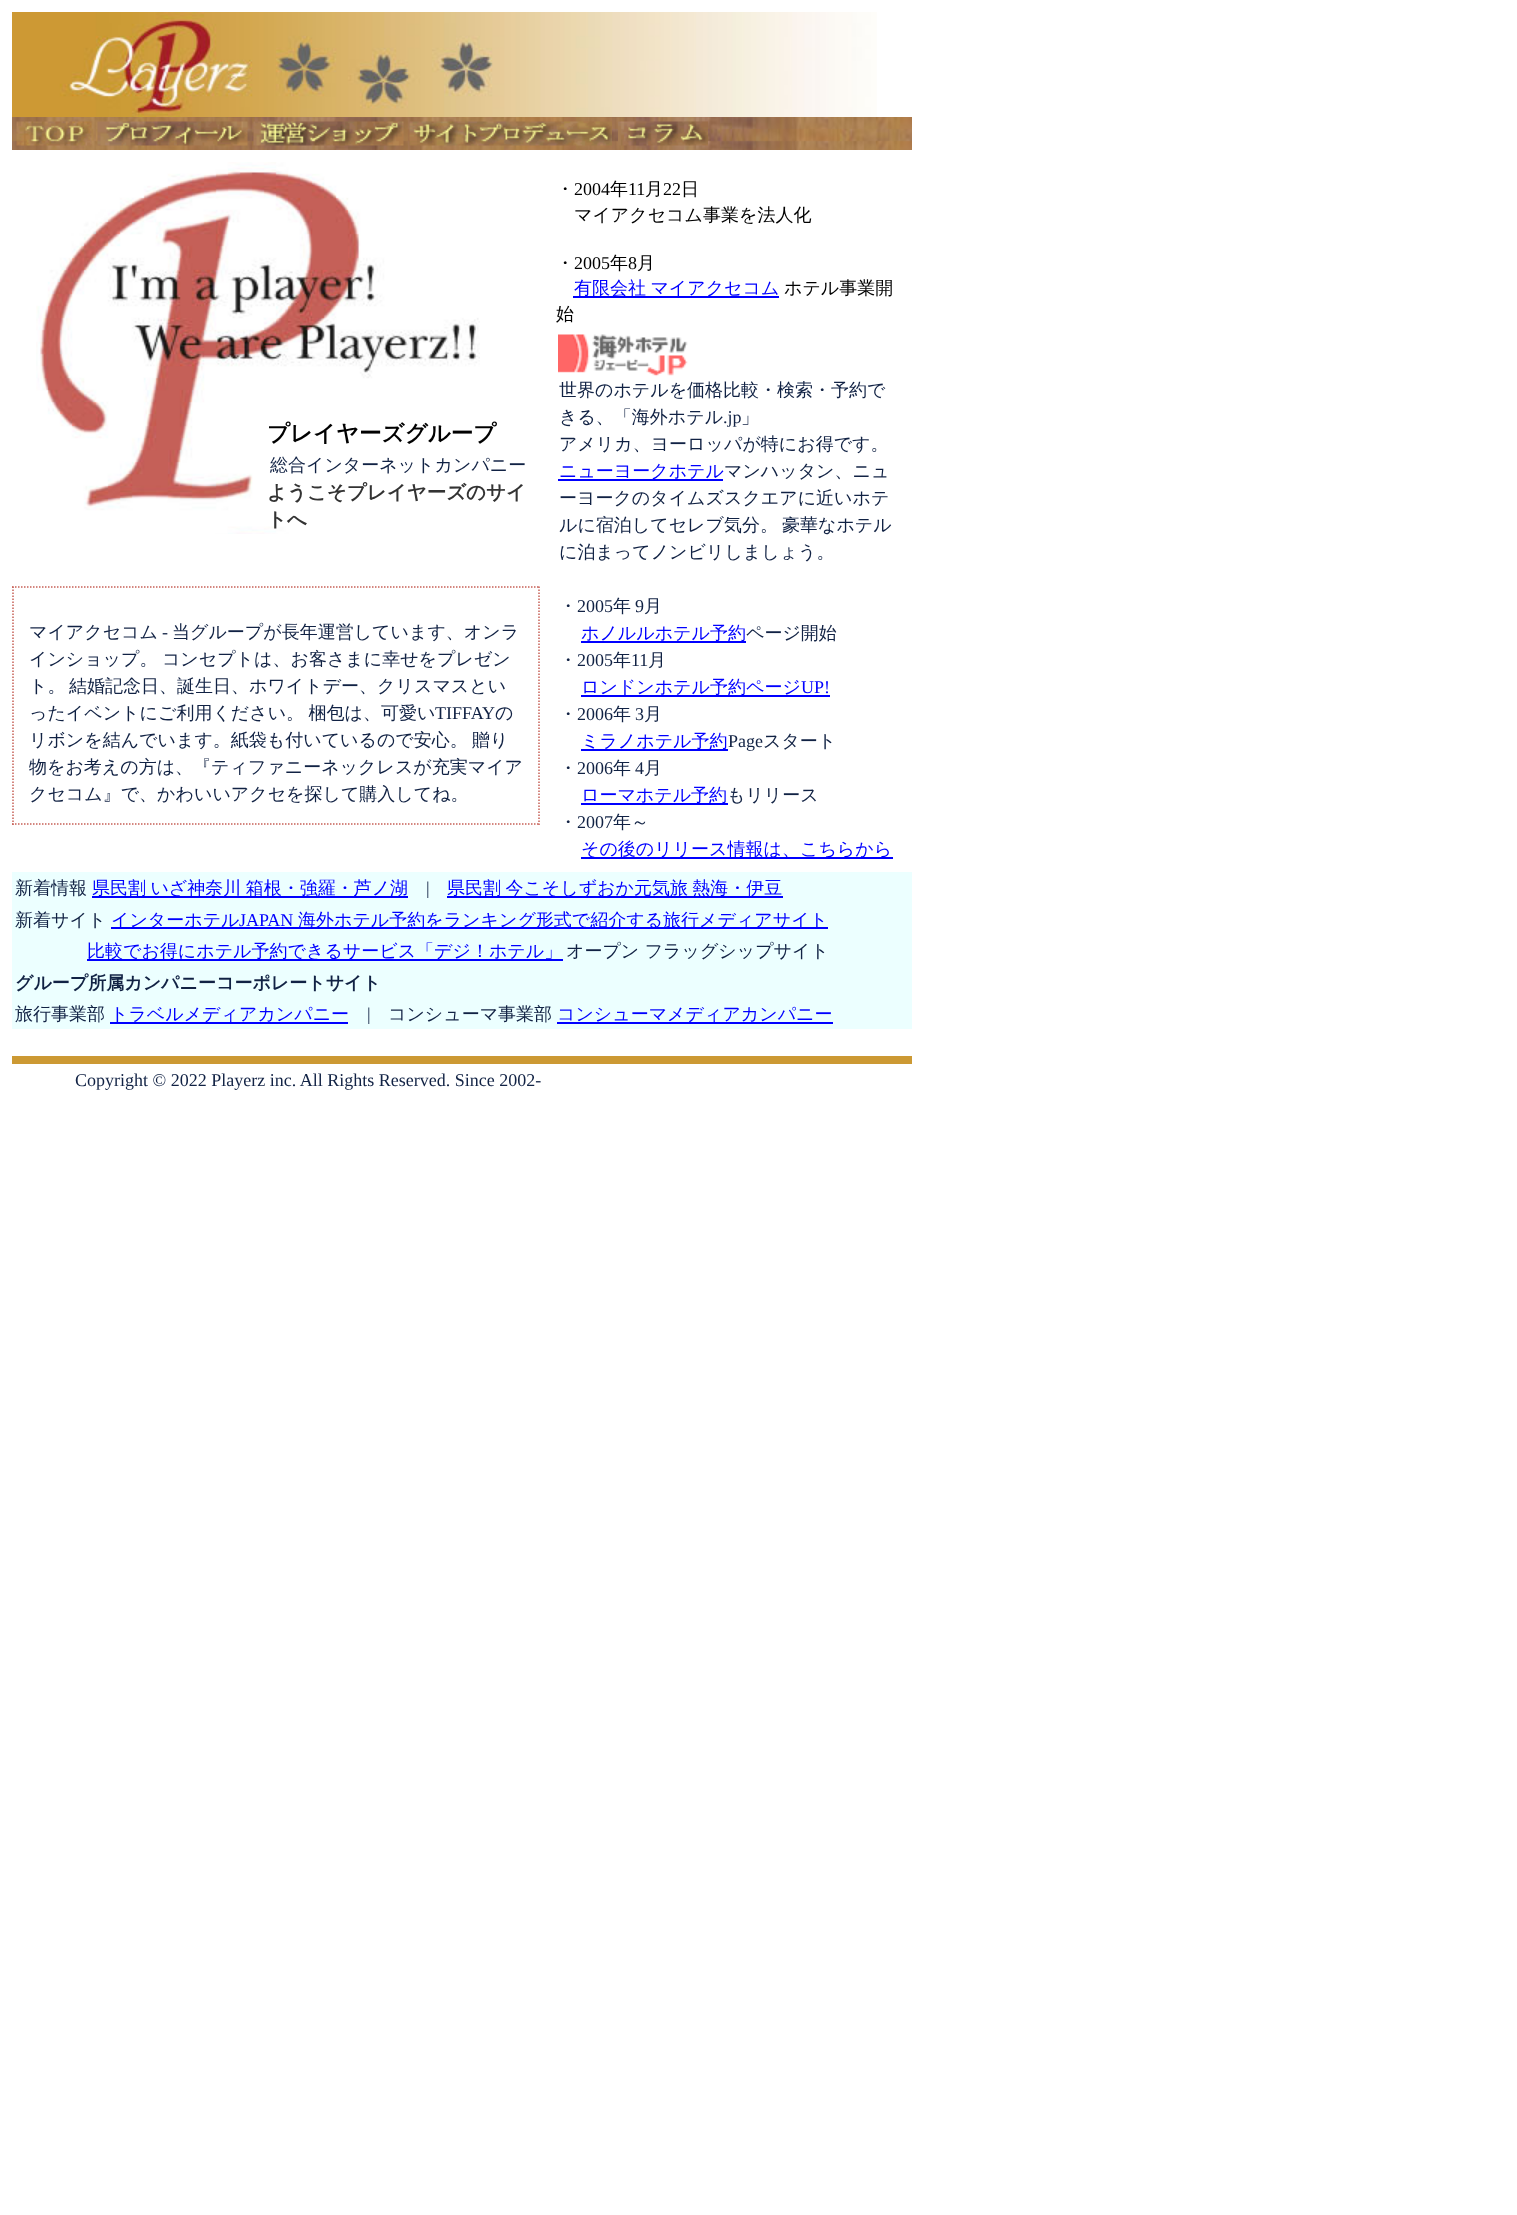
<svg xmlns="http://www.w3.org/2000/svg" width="1517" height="2215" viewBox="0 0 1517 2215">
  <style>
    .t1 { font: bold 22.5px WenQuanYi Zen Hei; fill: #000; }
    .t2 { font: 500 18px WenQuanYi Zen Hei; fill: #124; }
    .t3 { font: bold 19.5px WenQuanYi Zen Hei; fill: #333; }
    .t4 { font: 500 18px WenQuanYi Zen Hei; fill: #000; }
    .t5 { font: 18px Liberation Serif; fill: #000; }
    .t6 { font: 500 18px WenQuanYi Zen Hei; fill: #00f; }
    .t7 { font: 18px Liberation Serif; fill: #124; }
    .t8 { font: 18px Liberation Serif; fill: #00f; }
    .t9 { font: bold 18px WenQuanYi Zen Hei; fill: #124; }
  </style>
  <rect width="100%" height="100%" fill="#fff"/>
  <image x="12" y="12" width="865" height="105" href="images/1.png"/>
  <image x="12" y="117" width="900" height="33" href="images/2.png"/>
  <image x="16" y="121" width="76" height="25" href="images/3.png"/>
  <image x="97" y="121" width="151" height="25" href="images/4.png"/>
  <image x="253" y="121" width="151" height="25" href="images/5.png"/>
  <image x="409" y="121" width="203" height="25" href="images/6.png"/>
  <image x="618" y="121" width="90" height="25" href="images/7.png"/>
  <image x="36" y="162" width="444" height="372" href="images/8.png"/>
  <text x="267" y="441" class="t1">プレイヤーズグループ</text>
  <text x="270" y="471" class="t2">総合インターネットカンパニー</text>
  <text x="267" y="499" class="t3">ようこそプレイヤーズのサイ</text>
  <text x="267" y="526" class="t3">トへ</text>
  <text x="556" y="195" class="t4">・</text>
  <text x="574" y="195" class="t5">2004</text>
  <text x="610" y="195" class="t4">年</text>
  <text x="628" y="195" class="t5">11</text>
  <text x="645" y="195" class="t4">月</text>
  <text x="663" y="195" class="t5">22</text>
  <text x="681" y="195" class="t4">日</text>
  <text x="574" y="221" class="t4">マイアクセコム事業を法人化</text>
  <text x="556" y="269" class="t4">・</text>
  <text x="574" y="269" class="t5">2005</text>
  <text x="610" y="269" class="t4">年</text>
  <text x="628" y="269" class="t5">8</text>
  <text x="637" y="269" class="t4">月</text>
  <rect x="573" y="296" width="206" height="2" fill="#00f"/>
  <text x="574" y="294" word-spacing="-1" class="t6">有限会社 マイアクセコム</text>
  <text x="784" y="294" class="t4">ホテル事業開</text>
  <text x="556" y="320" class="t4">始</text>
  <image x="558" y="334" width="130" height="43" href="images/9.png"/>
  <text x="559" y="396" class="t2">世界のホテルを価格比較・検索・予約で</text>
  <text x="559" y="423" class="t2">きる、「海外ホテル</text>
  <text x="723" y="423" class="t7">.jp</text>
  <text x="741" y="423" class="t2">」</text>
  <text x="559" y="450" class="t2">アメリカ、ヨーロッパが特にお得です。</text>
  <rect x="558" y="479" width="165" height="2" fill="#00f"/>
  <text x="559" y="477" class="t6">ニューヨークホテル</text>
  <text x="724" y="477" class="t2">マンハッタン、ニュ</text>
  <text x="559" y="504" class="t2">ーヨークのタイムズスクエアに近いホテ</text>
  <text x="559" y="531" class="t2">ルに宿泊してセレブ気分。</text>
  <text x="782" y="531" class="t2">豪華なホテル</text>
  <text x="559" y="558" class="t2">に泊まってノンビリしましょう。</text>
  <text x="559" y="612" class="t2">・</text>
  <text x="577" y="612" class="t7">2005</text>
  <text x="613" y="612" class="t2">年</text>
  <text x="635" y="612" class="t7">9</text>
  <text x="644" y="612" class="t2">月</text>
  <rect x="581" y="641" width="165" height="2" fill="#00f"/>
  <text x="581" y="639" class="t6">ホノルルホテル予約</text>
  <text x="746" y="639" class="t2">ページ開始</text>
  <text x="559" y="666" class="t2">・</text>
  <text x="577" y="666" class="t7">2005</text>
  <text x="613" y="666" class="t2">年</text>
  <text x="631" y="666" class="t7">11</text>
  <text x="648" y="666" class="t2">月</text>
  <rect x="581" y="695" width="249" height="2" fill="#00f"/>
  <text x="581" y="693" class="t6">ロンドンホテル予約ページ</text>
  <text x="801" y="693" class="t8">UP!</text>
  <text x="559" y="720" class="t2">・</text>
  <text x="577" y="720" class="t7">2006</text>
  <text x="613" y="720" class="t2">年</text>
  <text x="635" y="720" class="t7">3</text>
  <text x="644" y="720" class="t2">月</text>
  <rect x="581" y="749" width="147" height="2" fill="#00f"/>
  <text x="581" y="747" class="t6">ミラノホテル予約</text>
  <text x="728" y="747" class="t7">Page</text>
  <text x="763" y="747" class="t2">スタート</text>
  <text x="559" y="774" class="t2">・</text>
  <text x="577" y="774" class="t7">2006</text>
  <text x="613" y="774" class="t2">年</text>
  <text x="635" y="774" class="t7">4</text>
  <text x="644" y="774" class="t2">月</text>
  <rect x="581" y="803" width="147" height="2" fill="#00f"/>
  <text x="581" y="801" class="t6">ローマホテル予約</text>
  <text x="727" y="801" class="t2">もリリース</text>
  <text x="559" y="828" class="t2">・</text>
  <text x="577" y="828" class="t7">2007</text>
  <text x="613" y="828" class="t2">年～</text>
  <rect x="581" y="857" width="312" height="2" fill="#00f"/>
  <text x="581" y="855" class="t6">その後のリリース情報は、こちらから</text>
  <path d="M12 587H540" fill="none" stroke="#c66057" stroke-width="1.5" stroke-dasharray="1.5 1.5"/>
  <path d="M539 586.5V825" fill="none" stroke="#c66057" stroke-width="1.5" stroke-dasharray="1.5 1.5"/>
  <path d="M12 824H540" fill="none" stroke="#c66057" stroke-width="1.5" stroke-dasharray="1.5 1.5"/>
  <path d="M13 586.5V825" fill="none" stroke="#c66057" stroke-width="1.5" stroke-dasharray="1.5 1.5"/>
  <text x="29" y="638" class="t2">マイアクセコム</text>
  <text x="162" y="638" class="t7">-</text>
  <text x="172" y="638" class="t2">当グループが長年運営しています、オンラ</text>
  <text x="29" y="665" word-spacing="-1" class="t2">インショップ。 コンセプトは、お客さまに幸せをプレゼン</text>
  <text x="29" y="692" class="t2">ト。</text>
  <text x="69" y="692" class="t2">結婚記念日、誕生日、ホワイトデー、クリスマスとい</text>
  <text x="29" y="719" word-spacing="-1" class="t2">ったイベントにご利用ください。 梱包は、可愛い</text>
  <text x="435" y="719" class="t7">TIFFAY</text>
  <text x="495" y="719" class="t2">の</text>
  <text x="29" y="746" class="t2">リボンを結んでいます。紙袋も付いているので安心。</text>
  <text x="472" y="746" class="t2">贈り</text>
  <text x="29" y="773" class="t2">物をお考えの方は、『ティファニーネックレスが充実マイア</text>
  <text x="29" y="800" class="t2">クセコム』で、かわいいアクセを探して購入してね。</text>
  <rect x="12" y="872" width="900" height="157" fill="#ecffff"/>
  <text x="15" y="894" class="t2">新着情報</text>
  <rect x="92" y="896" width="316" height="2" fill="#00f"/>
  <text x="92" y="894" word-spacing="-1" class="t6">県民割 いざ神奈川 箱根・強羅・芦ノ湖</text>
  <text x="426" y="894" class="t7">|</text>
  <rect x="447" y="896" width="336" height="2" fill="#00f"/>
  <text x="447" y="894" word-spacing="-1" class="t6">県民割 今こそしずおか元気旅 熱海・伊豆</text>
  <text x="15" y="926" class="t2">新着サイト</text>
  <rect x="111" y="927" width="717" height="2" fill="#00f"/>
  <text x="111" y="926" class="t6">インターホテル</text>
  <text x="239" y="926" class="t8">JAPAN</text>
  <text x="298" y="926" class="t6">海外ホテル予約をランキング形式で紹介する旅行メディアサイト</text>
  <rect x="87" y="959" width="476" height="2" fill="#00f"/>
  <text x="87" y="957" class="t6">比較でお得にホテル予約できるサービス「デジ！ホテル」</text>
  <text x="566" y="957" class="t2">オープン フラッグシップサイト</text>
  <text x="15" y="989" class="t9">グループ所属カンパニーコーポレートサイト</text>
  <text x="15" y="1020" class="t2">旅行事業部</text>
  <rect x="110" y="1022" width="238" height="2" fill="#00f"/>
  <text x="110" y="1020" class="t6">トラベルメディアカンパニー</text>
  <text x="367" y="1020" class="t7">|</text>
  <text x="388" y="1020" class="t2">コンシューマ事業部</text>
  <rect x="557" y="1022" width="276" height="2" fill="#00f"/>
  <text x="557" y="1020" class="t6">コンシューマメディアカンパニー</text>
  <rect x="12" y="1056" width="900" height="8" fill="#c93"/>
  <text x="75" y="1086" class="t7">Copyright © 2022 Playerz inc. All Rights Reserved. Since 2002-</text>
</svg>
